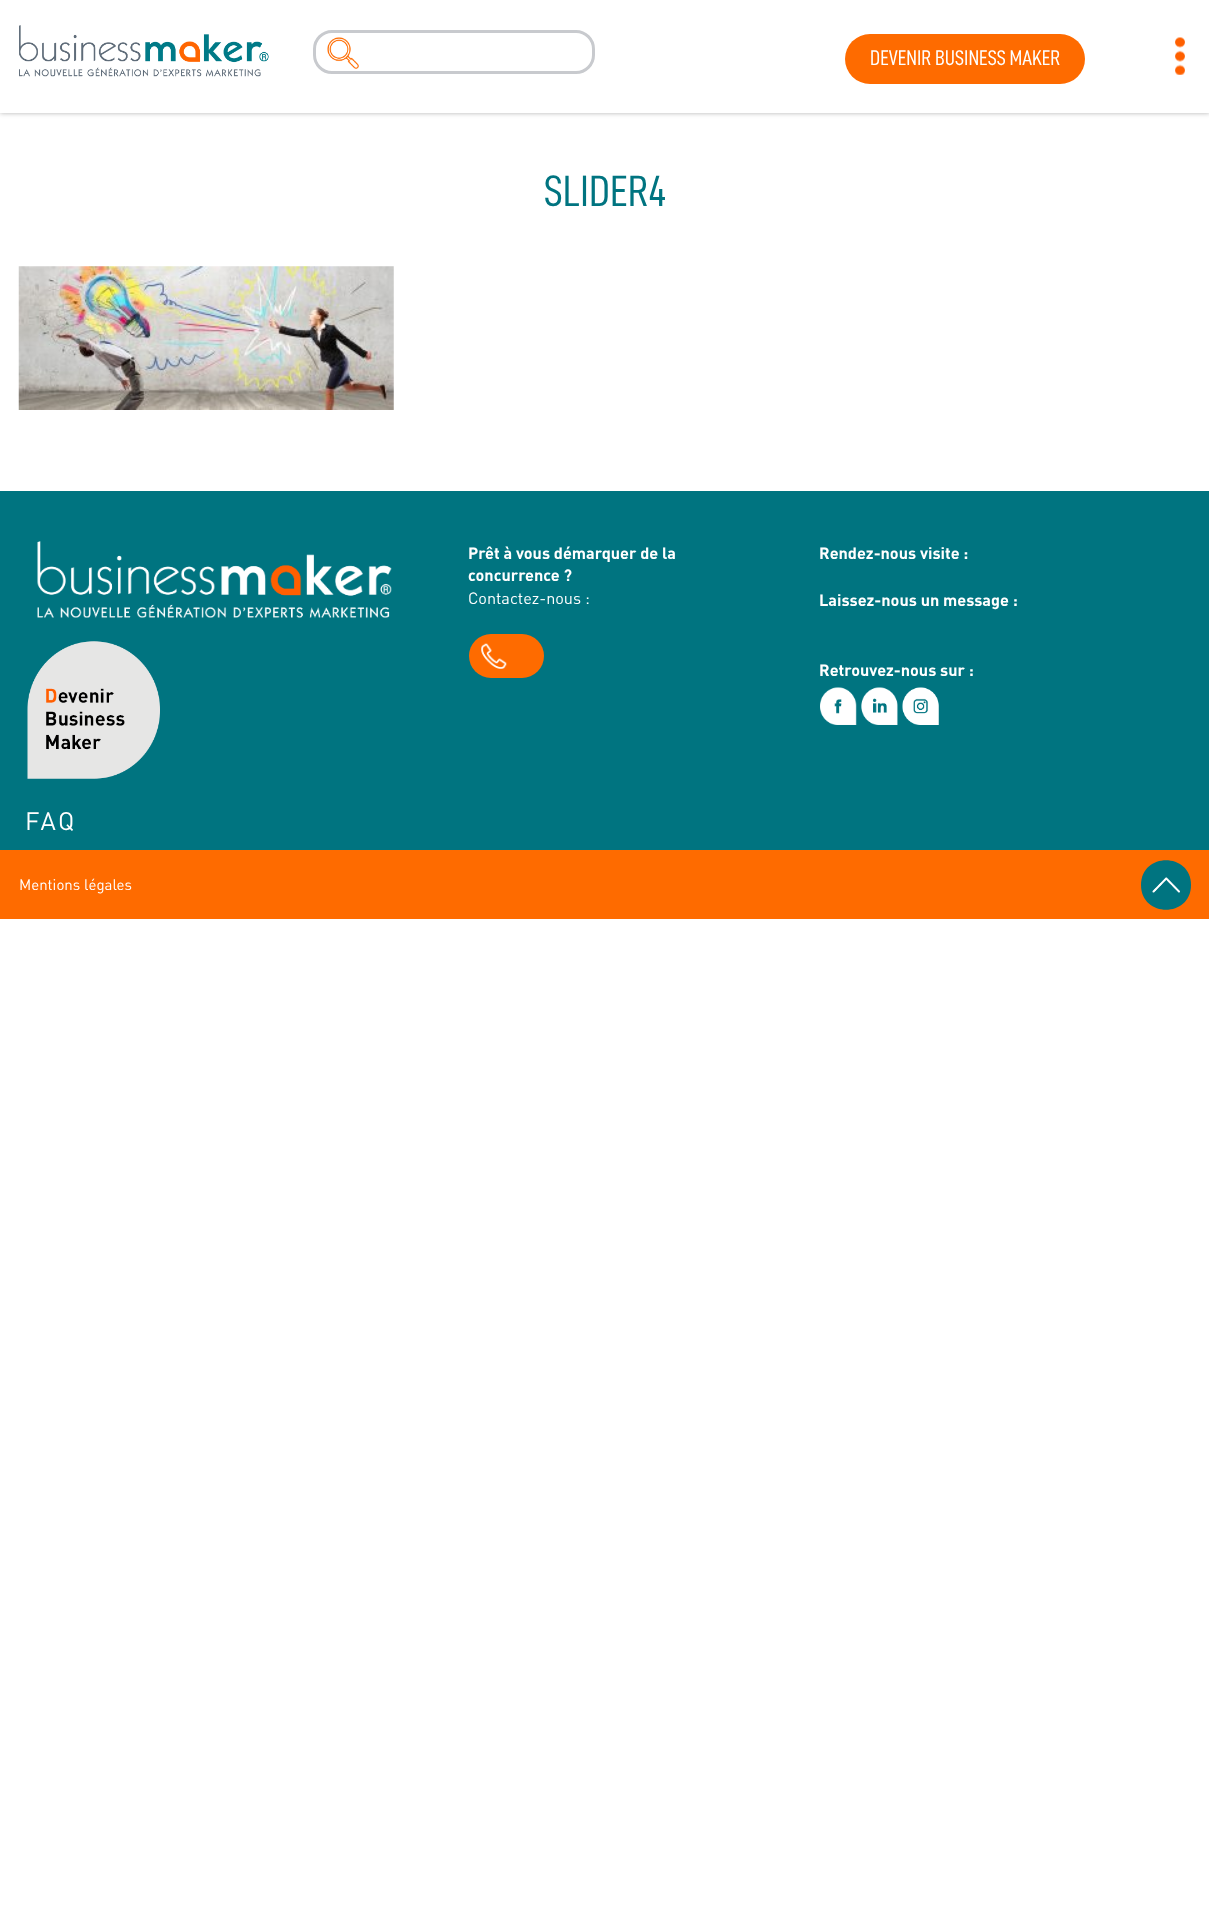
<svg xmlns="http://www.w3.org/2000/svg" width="1209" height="1908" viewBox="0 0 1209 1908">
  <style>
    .t1 { font: 21.25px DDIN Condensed; fill: #fff; }
    .t2 { font: 44px DDIN Condensed; fill: #007480; }
    .t3 { font: bold 16.25px DIN; fill: #fff; }
    .t4 { font: 16.25px DIN; fill: #fff; }
    .t5 { font: 25px DIN; letter-spacing: 2.5px; fill: #fff; }
    .t6 { font: 15px 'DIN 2'; fill: #fff; }
  </style>
  <rect width="100%" height="100%" fill="#fff"/>
  <rect x="0" y="0" width="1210" height="113" fill="#0000004d" filter="blur(2.5px)"/>
  <rect x="0" y="0" width="1209" height="113" fill="#fff"/>
  <image x="19" y="25" width="250" height="52" href="images/1.png"/>
  <image x="327" y="37" width="32" height="32" href="images/2.png"/>
  <rect x="314.5" y="31.5" width="279" height="41" rx="17.5" fill="none" stroke="#c8cace" stroke-width="3"/>
  <rect x="845" y="34" width="240" height="50" rx="25" fill="#fe6b00"/>
  <text x="870" y="65" class="t1">DEVENIR BUSINESS MAKER</text>
  <image x="1175" y="37" width="10" height="38" href="images/3.png"/>
  <text x="544" y="206" class="t2">SLIDER4</text>
  <image x="18" y="266" width="376" height="144" href="images/4.png"/>
  <rect x="0" y="491" width="1209" height="359" fill="#007480"/>
  <image x="37" y="541" width="355" height="77" href="images/5.png"/>
  <text x="468" y="559" class="t3">Prêt à vous démarquer de la</text>
  <text x="468" y="581" class="t3">concurrence ?</text>
  <text x="468" y="604" class="t4">Contactez-nous :</text>
  <rect x="469" y="634" width="75" height="44" rx="22" fill="#fe6b00"/>
  <image x="481" y="643" width="26" height="26" href="images/6.png"/>
  <text x="819" y="559" class="t3">Rendez-nous visite :</text>
  <text x="819" y="606" class="t3">Laissez-nous un message :</text>
  <text x="819" y="676" class="t3">Retrouvez-nous sur :</text>
  <image x="820" y="687" width="37" height="38" href="images/7.png"/>
  <image x="861" y="687" width="37" height="38" href="images/8.png"/>
  <image x="902" y="687" width="37" height="38" href="images/9.png"/>
  <image x="27" y="641" width="133" height="138" href="images/10.png"/>
  <text x="25" y="830" class="t5">FAQ</text>
  <rect x="0" y="850" width="1209" height="69" fill="#fe6b00"/>
  <text x="19" y="890" class="t6">Mentions</text>
  <text x="84" y="890" class="t6">légales</text>
  <path d="M1141 885C1141 852 1191 852 1191 885C1191 918 1141 918 1141 885Z" fill="#007480"/>
  <image x="1152" y="877" width="28" height="16" href="images/11.png"/>
</svg>
